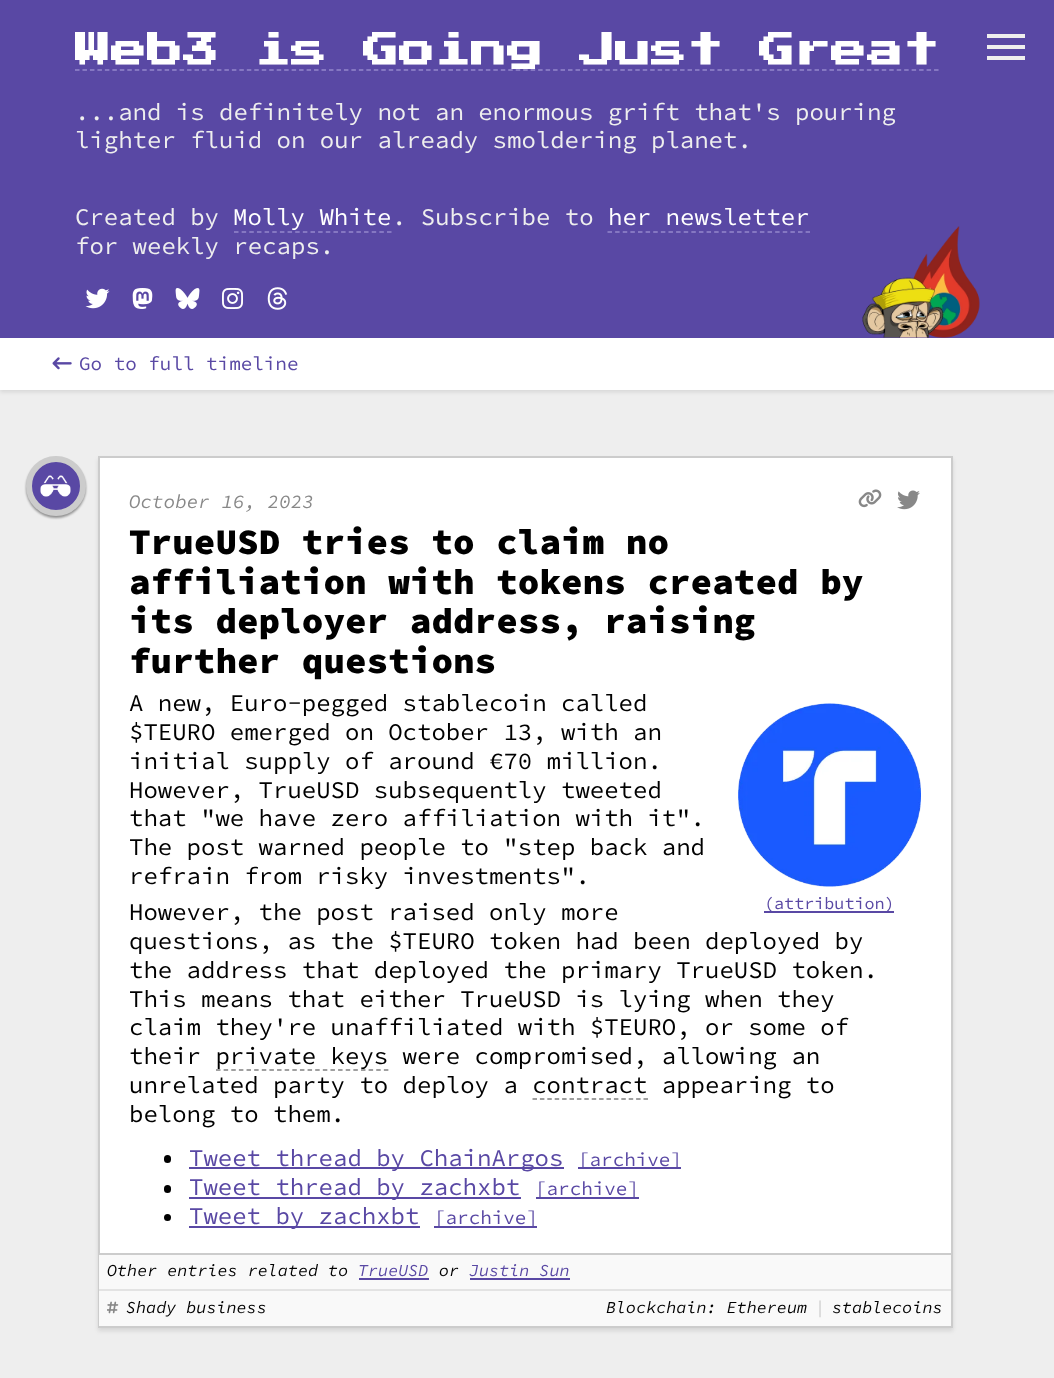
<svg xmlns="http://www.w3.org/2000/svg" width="1054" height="1378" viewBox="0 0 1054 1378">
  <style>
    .t1 { font: bold 36px 'Press Start 2P'; fill: #fff; }
    .t2 { font: 24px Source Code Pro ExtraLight; fill: #eee; }
    .t3 { font: 24px Source Code Pro ExtraLight; fill: #fff; }
    .t4 { font: 19.25px Source Code Pro ExtraLight; fill: #5948a4; }
    .t5 { font: italic 19.25px Source Code Pro ExtraLight; fill: #888; }
    .t6 { font: 900 36px Source Code Pro ExtraLight; fill: #000; }
    .t7 { font: 24px Source Code Pro ExtraLight; fill: #000; }
    .t8 { font: 16.75px Source Code Pro ExtraLight; fill: #5948a4; }
    .t9 { font: 24px Source Code Pro ExtraLight; fill: #5948a4; }
    .t10 { font: italic 16.75px Source Code Pro ExtraLight; fill: #000; }
    .t11 { font: italic 16.75px Source Code Pro ExtraLight; fill: #5948a4; }
    .t12 { font: italic 16.75px Source Code Pro ExtraLight; fill: #ccc; }
  </style>
  <rect width="100%" height="100%" fill="#eee"/>
  <rect x="0" y="339" width="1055" height="53" fill="#0000001a" filter="blur(2px)"/>
  <rect x="0" y="0" width="1054" height="338" fill="#5948a4"/>
  <text x="75" y="69" class="t1">Web3 is Going Just Great</text>
  <path d="M75 70H939" fill="none" stroke="#9487cb" stroke-width="1.5" stroke-dasharray="4.5 2.97"/>
  <text x="75" y="120" class="t2">...and is definitely not an enormous grift that's pouring</text>
  <text x="75" y="148" class="t2">lighter fluid on our already smoldering planet.</text>
  <text x="75" y="225" class="t2">Created by</text>
  <text x="233" y="225" class="t3">Molly White</text>
  <path d="M234 232H391.5" fill="none" stroke="#9487cb" stroke-width="1.5" stroke-dasharray="4.5 3.15"/>
  <text x="392" y="225" class="t2">. Subscribe to</text>
  <text x="608" y="225" class="t3">her newsletter</text>
  <path d="M607.5 232H810" fill="none" stroke="#9487cb" stroke-width="1.5" stroke-dasharray="4.5 3.12"/>
  <text x="75" y="254" class="t2">for weekly recaps.</text>
  <image x="85" y="288" width="25" height="21" href="images/1.png"/>
  <image x="132" y="288" width="21" height="21" href="images/2.png"/>
  <image x="175" y="288" width="25" height="21" href="images/3.png"/>
  <image x="222" y="288" width="21" height="21" href="images/4.png"/>
  <image x="267" y="287" width="21" height="23" href="images/5.png"/>
  <image x="862" y="226" width="118" height="112" href="images/6.png"/>
  <rect x="987" y="34" width="38" height="4" fill="#eee"/>
  <rect x="987" y="45" width="38" height="4" fill="#eee"/>
  <rect x="987" y="56" width="38" height="4" fill="#eee"/>
  <rect x="0" y="338" width="1054" height="52" fill="#fff"/>
  <image x="52" y="357" width="20" height="13" href="images/7.png"/>
  <text x="79" y="370" class="t4">Go to full timeline</text>
  <rect x="26" y="458" width="60" height="60" rx="30" fill="#00000066" filter="blur(1px)"/>
  <circle cx="56" cy="486" r="27" fill="#5948a4" stroke="#ccc" stroke-width="6"/>
  <image x="40" y="475" width="31" height="22" href="images/8.png"/>
  <rect x="98" y="459" width="855" height="872" fill="#0000001a" filter="blur(2px)"/>
  <rect x="100" y="458" width="851" height="795" fill="#fff"/>
  <rect x="99" y="457" width="853" height="870" fill="none" stroke="#ccc" stroke-width="2"/>
  <text x="129" y="508" class="t5">October 16, 2023</text>
  <image x="858" y="489" width="24" height="19" href="images/9.png"/>
  <image x="897" y="490" width="23" height="20" href="images/10.png"/>
  <text x="129" y="554" class="t6">TrueUSD tries to claim no</text>
  <text x="129" y="594" class="t6">affiliation with tokens created by</text>
  <text x="129" y="633" class="t6">its deployer address, raising</text>
  <text x="129" y="673" class="t6">further questions</text>
  <text x="129" y="711" class="t7">A new, Euro-pegged stablecoin called</text>
  <text x="129" y="740" class="t7">$TEURO emerged on October 13, with an</text>
  <text x="129" y="769" class="t7">initial supply of around €70 million.</text>
  <text x="129" y="798" class="t7">However, TrueUSD subsequently tweeted</text>
  <text x="129" y="826" class="t7">that "we have zero affiliation with it".</text>
  <text x="129" y="855" class="t7">The post warned people to "step back and</text>
  <text x="129" y="884" class="t7">refrain from risky investments".</text>
  <text x="129" y="920" class="t7">However, the post raised only more</text>
  <text x="129" y="949" class="t7">questions, as the $TEURO token had been deployed by</text>
  <text x="129" y="978" class="t7">the address that deployed the primary TrueUSD token.</text>
  <text x="129" y="1007" class="t7">This means that either TrueUSD is lying when they</text>
  <text x="129" y="1035" class="t7">claim they're unaffiliated with $TEURO, or some of</text>
  <text x="129" y="1064" class="t7">their private keys were compromised, allowing an</text>
  <path d="M216 1070H388.5" fill="none" stroke="#808080" stroke-width="1.5" stroke-dasharray="4.5 3.13"/>
  <text x="129" y="1093" class="t7">unrelated party to deploy a contract appearing to</text>
  <path d="M532.5 1099H648" fill="none" stroke="#808080" stroke-width="1.5" stroke-dasharray="4.5 2.9"/>
  <text x="129" y="1122" class="t7">belong to them.</text>
  <image x="738" y="703" width="183" height="184" href="images/11.png"/>
  <rect x="764" y="911" width="130" height="2" fill="#5948a4"/>
  <text x="764" y="909" class="t8">(attribution)</text>
  <rect x="164" y="1155" width="7" height="8" rx="3.5" fill="#000"/>
  <rect x="189" y="1167" width="375" height="2" fill="#5948a4"/>
  <text x="189" y="1166" class="t9">Tweet thread by ChainArgos</text>
  <rect x="578" y="1167" width="103" height="2" fill="#5948a4"/>
  <text x="578" y="1166" class="t4">[archive]</text>
  <rect x="164" y="1185" width="7" height="8" rx="3.5" fill="#000"/>
  <rect x="189" y="1197" width="332" height="2" fill="#5948a4"/>
  <text x="189" y="1195" class="t9">Tweet thread by zachxbt</text>
  <rect x="536" y="1197" width="103" height="2" fill="#5948a4"/>
  <text x="535" y="1195" class="t4">[archive]</text>
  <circle cx="167.5" cy="1217.5" r="3.5" fill="#000"/>
  <rect x="189" y="1226" width="231" height="2" fill="#5948a4"/>
  <text x="189" y="1224" class="t9">Tweet by zachxbt</text>
  <rect x="434" y="1226" width="103" height="2" fill="#5948a4"/>
  <text x="434" y="1224" class="t4">[archive]</text>
  <rect x="99" y="1255" width="852" height="71" fill="#f9f9f9"/>
  <rect x="99" y="1253" width="852" height="2" fill="#ccc"/>
  <rect x="99" y="1289" width="852" height="2" fill="#e3e3e3"/>
  <text x="107" y="1276" class="t10">Other entries related to</text>
  <text x="358" y="1276" class="t11">TrueUSD</text>
  <rect x="359" y="1278" width="70" height="2" fill="#5948a4"/>
  <text x="439" y="1276" class="t10">or</text>
  <text x="469" y="1276" class="t11">Justin Sun</text>
  <rect x="470" y="1278" width="100" height="2" fill="#5948a4"/>
  <image x="107" y="1301" width="12" height="13" href="images/12.png"/>
  <text x="126" y="1313" class="t10">Shady business</text>
  <text x="606" y="1313" class="t10">Blockchain: Ethereum</text>
  <text x="815" y="1313" class="t12">|</text>
  <text x="832" y="1313" class="t10">stablecoins</text>
</svg>
